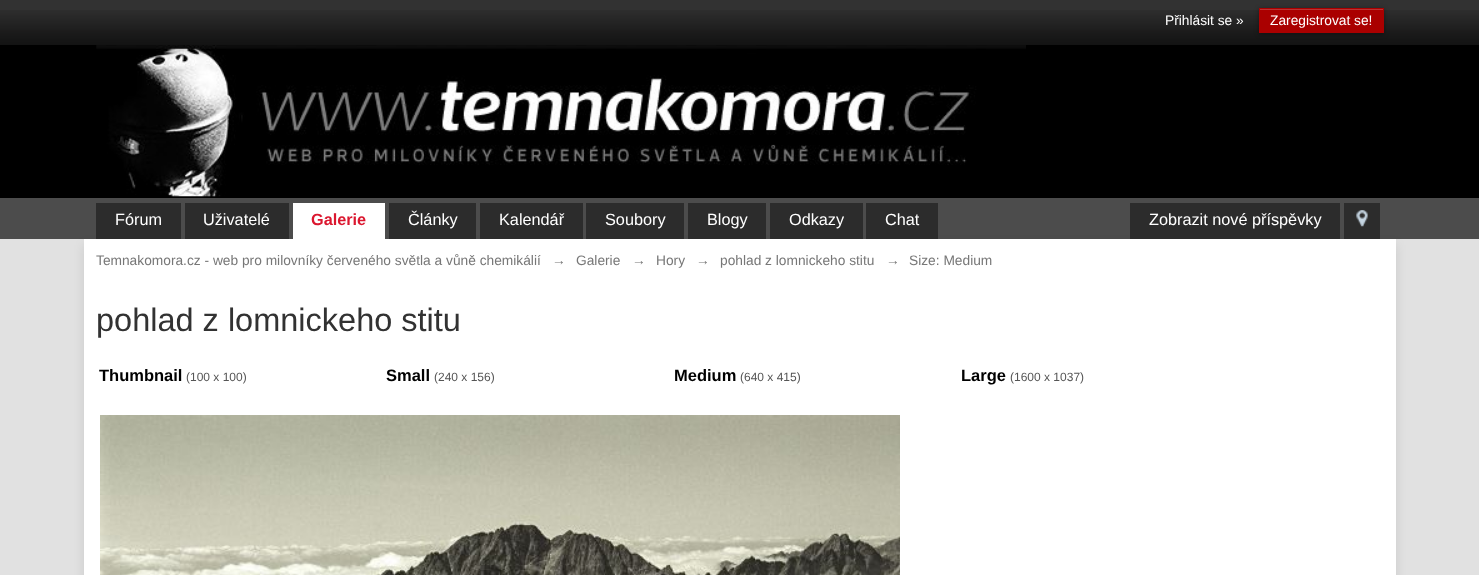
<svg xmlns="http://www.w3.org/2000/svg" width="1479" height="575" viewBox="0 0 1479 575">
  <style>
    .t1 { font: 13.75px Liberation Sans; fill: #fff; }
    .t2 { font: 16.25px Liberation Sans; fill: #fff; }
    .t3 { font: bold 16.25px Liberation Sans; fill: #db172f; }
    .t4 { font: 13.75px Liberation Sans; fill: #777; }
    .t5 { font: 32.5px Liberation Sans; fill: #323232; }
    .t6 { font: bold 16.5px Liberation Sans; fill: #000; }
    .t7 { font: 12px Liberation Sans; fill: #555; }
  </style>
  <rect width="100%" height="100%" fill="#e1e1e1"/>
  <rect x="0" y="0" width="1479" height="10" fill="#323232"/>
  <image x="0" y="10" width="1479" height="35" href="images/1.png"/>
  <text x="1165" y="25" class="t1">Přihlásit se »</text>
  <rect x="1259" y="9" width="125" height="25" fill="#00000066" filter="blur(2.5px)"/>
  <rect x="1259" y="8" width="125" height="25" fill="#a00"/>
  <rect x="1260" y="9" width="123" height="1" fill="#b33"/>
  <text x="1270" y="25" class="t1">Zaregistrovat se!</text>
  <rect x="0" y="45" width="1479" height="153" fill="#000"/>
  <image x="96" y="45" width="930" height="152" href="images/2.png"/>
  <rect x="0" y="198" width="1479" height="41" fill="#4c4c4c"/>
  <rect x="84" y="245" width="1312" height="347" fill="#0000001a" filter="blur(5.5px)"/>
  <rect x="96" y="203" width="85" height="36" fill="#2c2c2c"/>
  <text x="115" y="225" class="t2">Fórum</text>
  <rect x="185" y="203" width="104" height="36" fill="#2c2c2c"/>
  <text x="203" y="225" class="t2">Uživatelé</text>
  <rect x="293" y="203" width="92" height="36" fill="#fff"/>
  <text x="311" y="225" class="t3">Galerie</text>
  <rect x="389" y="203" width="87" height="36" fill="#2c2c2c"/>
  <text x="408" y="225" class="t2">Články</text>
  <rect x="480" y="203" width="103" height="36" fill="#2c2c2c"/>
  <text x="499" y="225" class="t2">Kalendář</text>
  <rect x="586" y="203" width="98" height="36" fill="#2c2c2c"/>
  <text x="605" y="225" class="t2">Soubory</text>
  <rect x="688" y="203" width="78" height="36" fill="#2c2c2c"/>
  <text x="707" y="225" class="t2">Blogy</text>
  <rect x="770" y="203" width="93" height="36" fill="#2c2c2c"/>
  <text x="789" y="225" class="t2">Odkazy</text>
  <rect x="866" y="203" width="72" height="36" fill="#2c2c2c"/>
  <text x="885" y="225" class="t2">Chat</text>
  <rect x="1130" y="203" width="210" height="36" fill="#2c2c2c"/>
  <text x="1149" y="225" class="t2">Zobrazit nové příspěvky</text>
  <rect x="1344" y="203" width="36" height="36" fill="#2c2c2c"/>
  <image x="1356" y="210" width="12" height="17" href="images/3.png"/>
  <rect x="84" y="239" width="1312" height="336" fill="#fff"/>
  <text x="96" y="265" class="t4">Temnakomora.cz - web pro milovníky červeného světla a vůně chemikálií</text>
  <text x="552" y="265" class="t4">→</text>
  <text x="576" y="265" class="t4">Galerie</text>
  <text x="632" y="265" class="t4">→</text>
  <text x="656" y="265" class="t4">Hory</text>
  <text x="696" y="265" class="t4">→</text>
  <text x="720" y="265" class="t4">pohlad z lomnickeho stitu</text>
  <text x="886" y="265" class="t4">→</text>
  <text x="909" y="265" class="t4">Size: Medium</text>
  <text x="96" y="331" class="t5">pohlad z lomnickeho stitu</text>
  <text x="99" y="381" class="t6">Thumbnail</text>
  <text x="186" y="381" class="t7">(100 x 100)</text>
  <text x="386" y="381" class="t6">Small</text>
  <text x="434" y="381" class="t7">(240 x 156)</text>
  <text x="674" y="381" class="t6">Medium</text>
  <text x="740" y="381" class="t7">(640 x 415)</text>
  <text x="961" y="381" class="t6">Large</text>
  <text x="1010" y="381" class="t7">(1600 x 1037)</text>
  <image x="100" y="415" width="800" height="160" href="images/4.png"/>
</svg>
